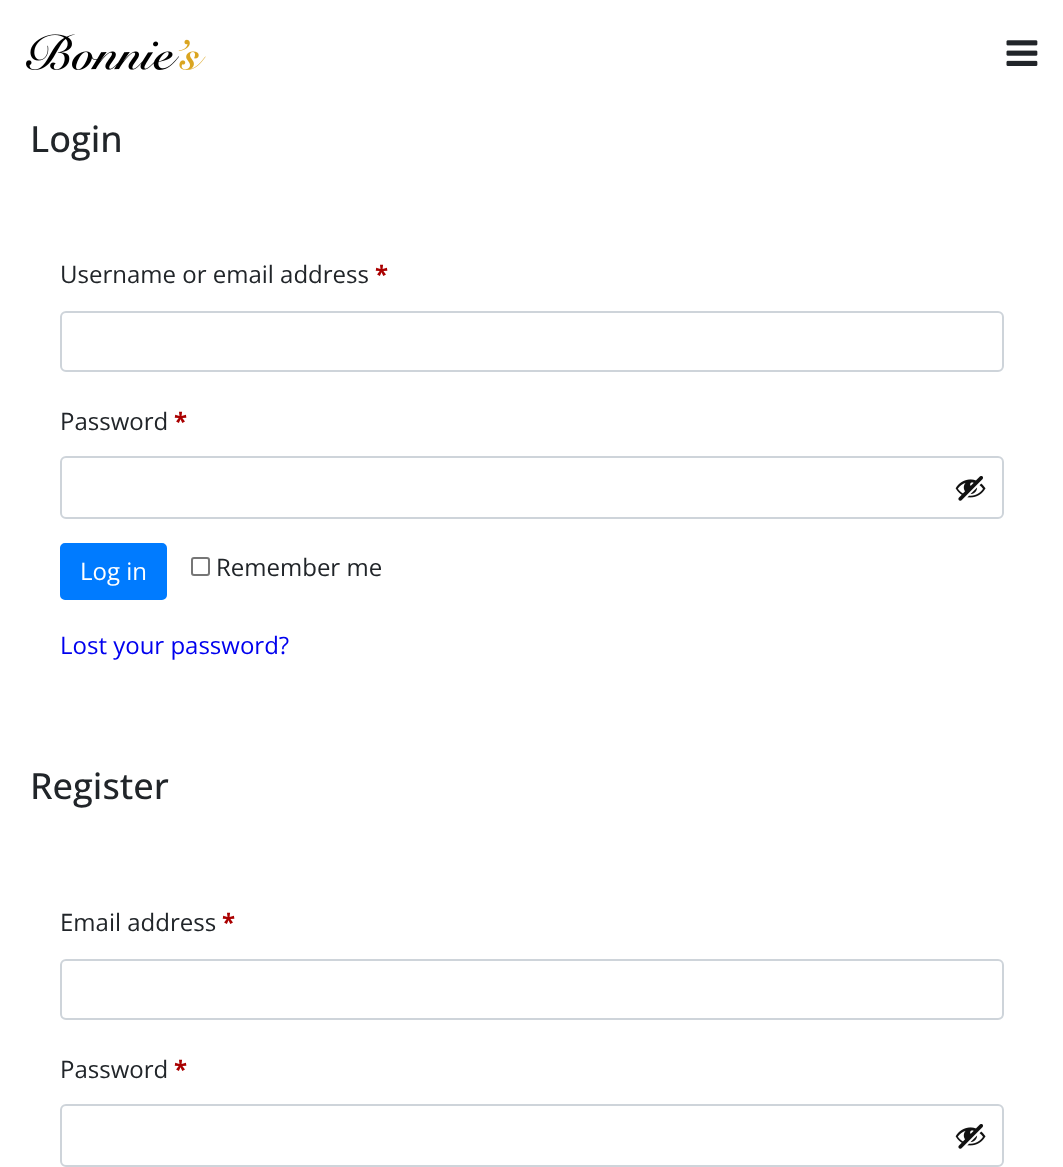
<svg xmlns="http://www.w3.org/2000/svg" width="1063" height="1167" viewBox="0 0 1063 1167">
  <style>
    .t1 { font: 500 36px Open Sans; fill: #212529; }
    .t2 { font: 24px Open Sans; fill: #212529; }
    .t3 { font: bold 24px Open Sans; fill: #a00; }
    .t4 { font: 24px Open Sans; fill: #fff; }
    .t5 { font: 24px Open Sans; fill: #00e; }
  </style>
  <rect width="100%" height="100%" fill="#fff"/>
  <image x="26" y="34" width="180" height="36" href="images/1.png"/>
  <image x="1006" y="40" width="32" height="26" href="images/2.png"/>
  <text x="30" y="152" class="t1">Login</text>
  <text x="60" y="283" class="t2">Username or email address</text>
  <text x="375" y="283" class="t3">*</text>
  <rect x="61" y="312" width="942" height="59" rx="5" fill="none" stroke="#ced4da" stroke-width="2"/>
  <text x="60" y="430" class="t2">Password</text>
  <text x="174" y="430" class="t3">*</text>
  <rect x="61" y="457" width="942" height="61" rx="5" fill="none" stroke="#ced4da" stroke-width="2"/>
  <image x="955" y="476" width="31" height="25" href="images/3.png"/>
  <rect x="61" y="544" width="105" height="55" rx="4" fill="#007bff" stroke="#007bff" stroke-width="2"/>
  <text x="80" y="580" class="t4">Log in</text>
  <rect x="192" y="558" width="17" height="17" rx="2" fill="none" stroke="#767676" stroke-width="2"/>
  <text x="216" y="576" class="t2">Remember me</text>
  <text x="60" y="654" class="t5">Lost your password?</text>
  <text x="30" y="799" class="t1">Register</text>
  <text x="60" y="931" class="t2">Email address</text>
  <text x="222" y="931" class="t3">*</text>
  <rect x="61" y="960" width="942" height="59" rx="5" fill="none" stroke="#ced4da" stroke-width="2"/>
  <text x="60" y="1078" class="t2">Password</text>
  <text x="174" y="1078" class="t3">*</text>
  <rect x="61" y="1105" width="942" height="61" rx="5" fill="none" stroke="#ced4da" stroke-width="2"/>
  <image x="955" y="1124" width="31" height="25" href="images/3.png"/>
</svg>
